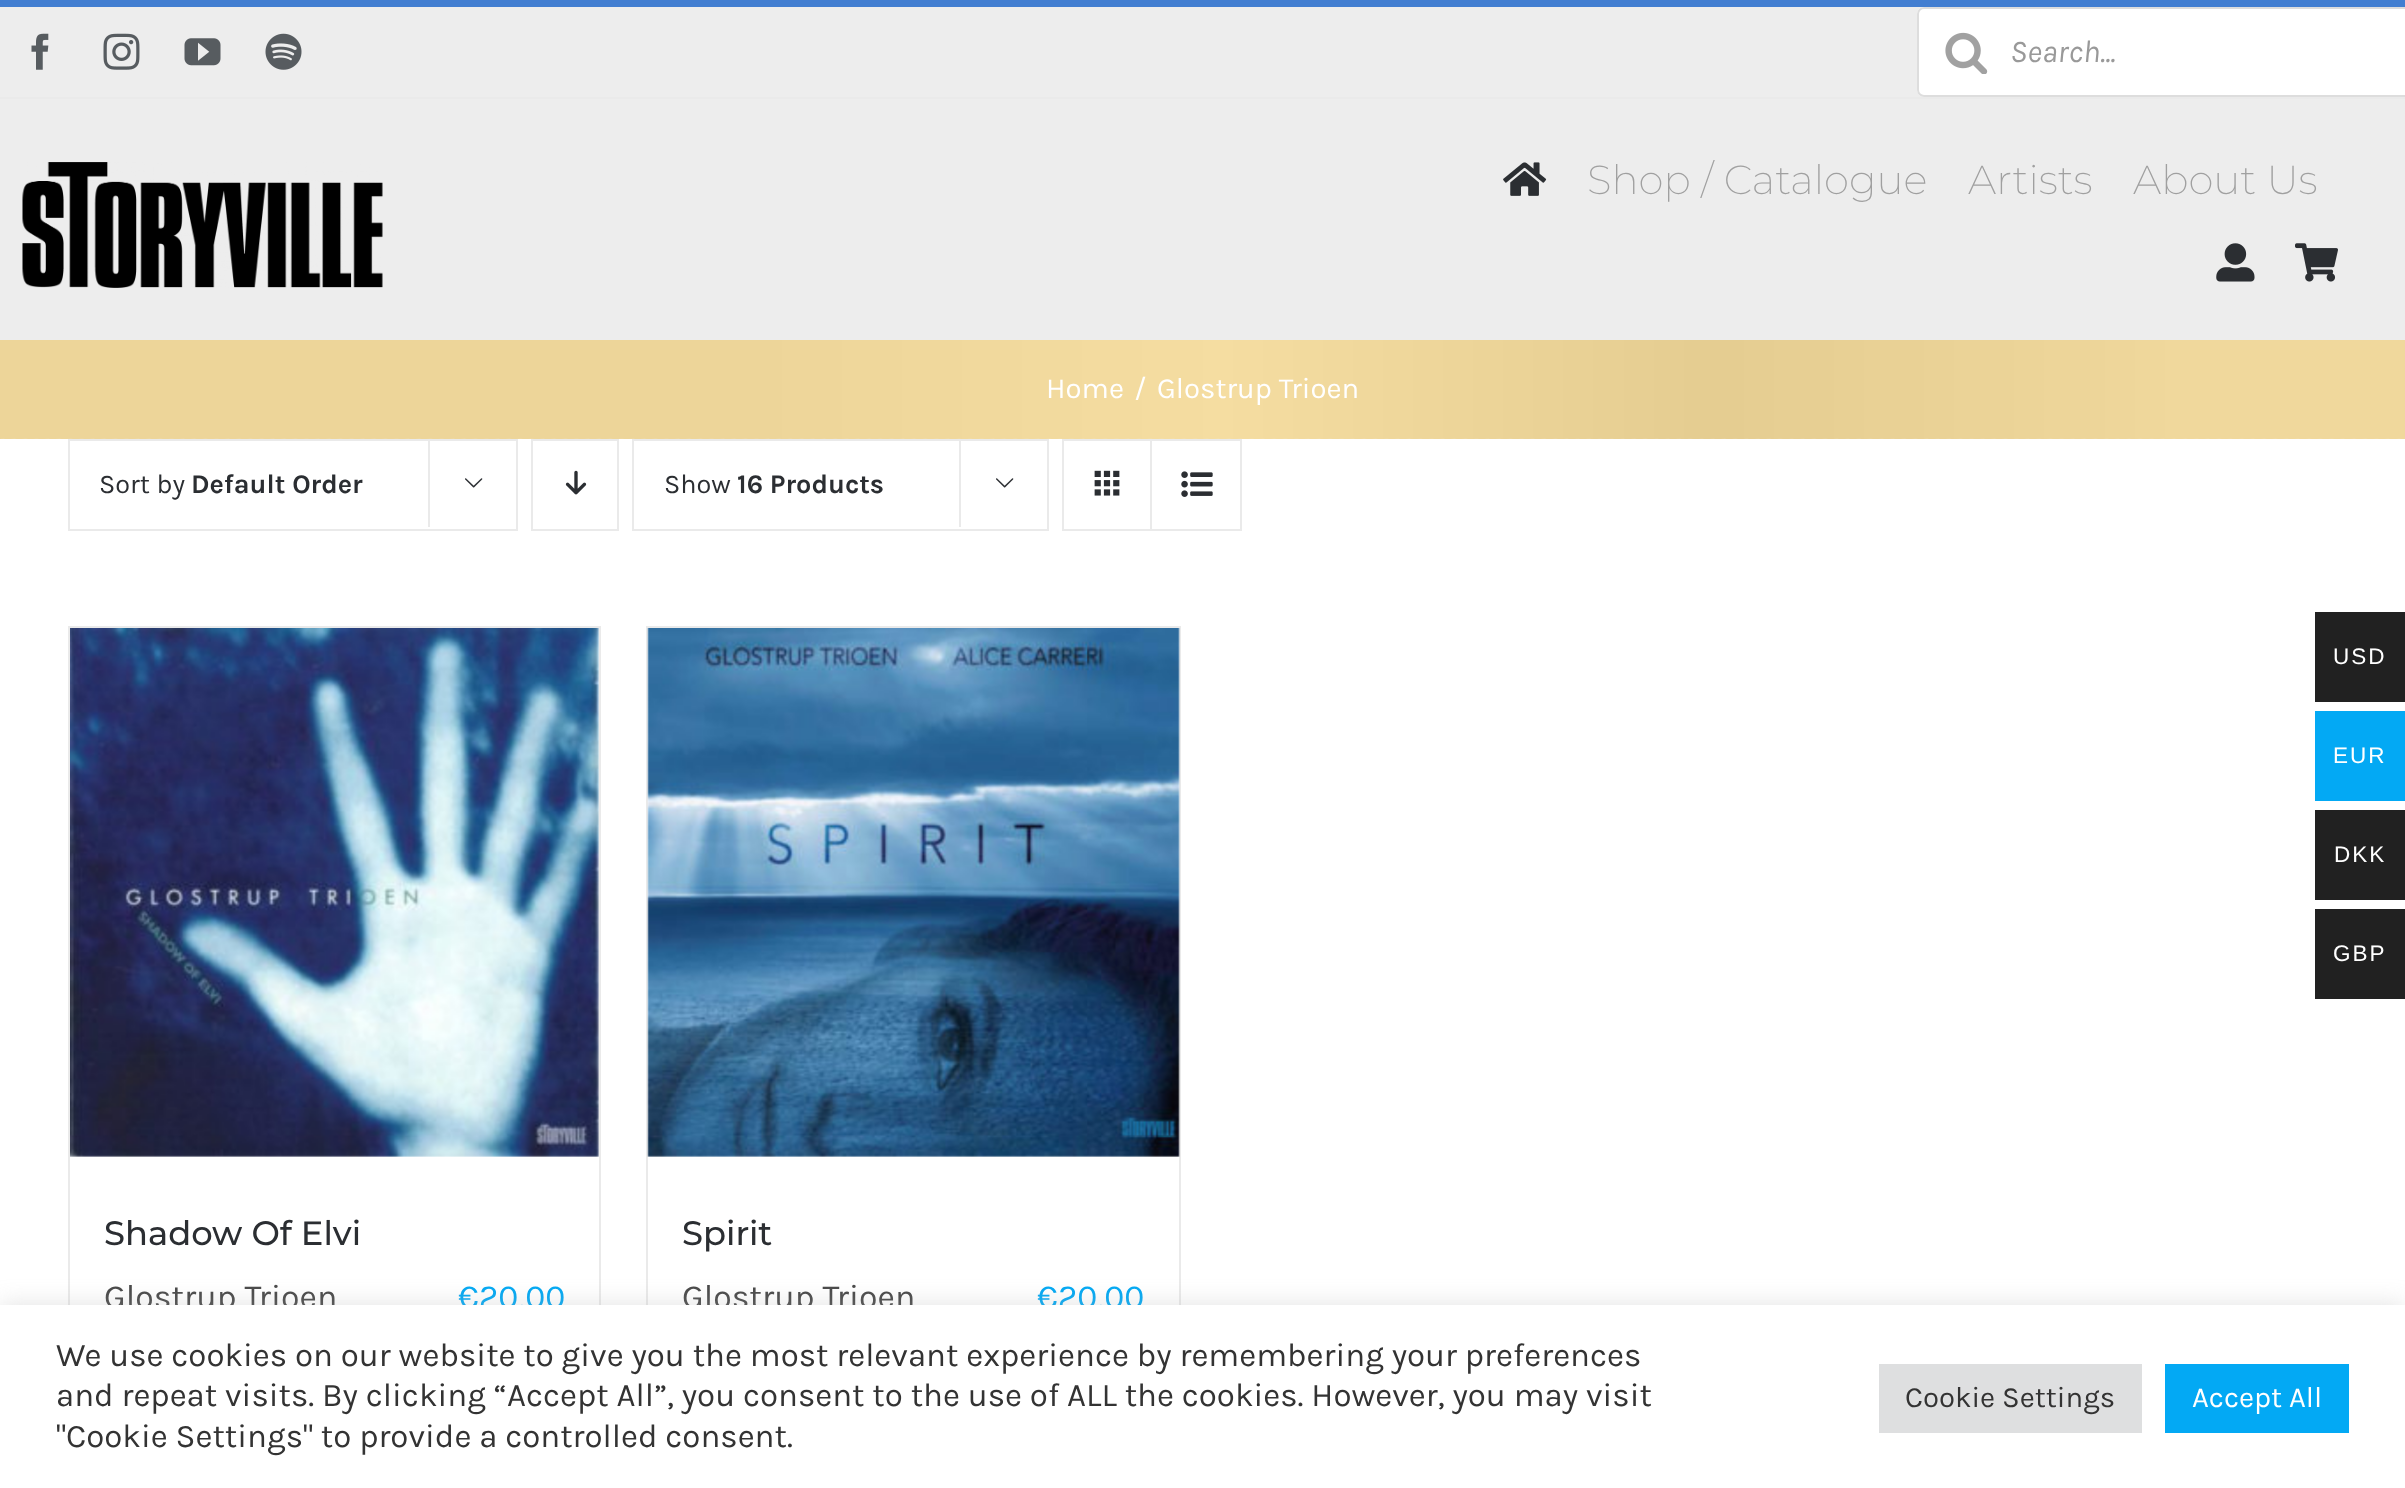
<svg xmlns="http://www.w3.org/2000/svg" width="2405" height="1488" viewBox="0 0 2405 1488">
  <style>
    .t1 { font: italic 31.5px Karla; fill: #999; }
    .t2 { font: 200 40.5px Montserrat; fill: #a0a0a0; }
    .t3 { font: 29.25px Karla; fill: #fff; }
    .t4 { font: 27px Karla; fill: #2b2e32; }
    .t5 { font: bold 27px Karla; fill: #2b2e32; }
    .t6 { font: 500 33.75px Montserrat; fill: #2b2e32; }
    .t7 { font: 33.75px Karla; fill: #494949; }
    .t8 { font: 33.75px Karla; fill: #03a9f4; }
    .t9 { font: 22.5px Liberation Sans; letter-spacing: 2px; fill: #fff; }
    .t10 { font: 33px Karla; fill: #333; }
    .t11 { font: 29.25px Karla; fill: #333; }
  </style>
  <rect width="100%" height="100%" fill="#fff"/>
  <rect x="0" y="7" width="1924" height="90" fill="#ededed"/>
  <rect x="0" y="0" width="2405" height="7" fill="#427ed1"/>
  <image x="31" y="33" width="18" height="37" href="images/1.png"/>
  <image x="103" y="33" width="37" height="37" href="images/2.png"/>
  <image x="184" y="38" width="37" height="28" href="images/3.png"/>
  <image x="265" y="33" width="37" height="37" href="images/4.png"/>
  <path d="M1924 7H2405V97H1924C1920 97 1917 94 1917 90V14C1917 10 1920 7 1924 7Z" fill="#fff"/>
  <rect x="1918" y="8" width="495" height="88" rx="6" fill="none" stroke="#ddd" stroke-width="2"/>
  <image x="1945" y="32" width="43" height="42" href="images/5.png"/>
  <text x="2010" y="62" class="t1">Search...</text>
  <rect x="0" y="99" width="2405" height="241" fill="#ededed"/>
  <rect x="0" y="97" width="2405" height="2" fill="#eaeaea"/>
  <image x="22" y="162" width="361" height="126" href="images/6.png"/>
  <image x="1503" y="162" width="44" height="34" href="images/7.png"/>
  <text x="1587" y="194" class="t2">Shop / Catalogue</text>
  <text x="1968" y="194" class="t2">Artists</text>
  <text x="2133" y="194" class="t2">About Us</text>
  <image x="2216" y="243" width="39" height="39" href="images/8.png"/>
  <image x="2295" y="243" width="43" height="39" href="images/9.png"/>
  <image x="0" y="340" width="2405" height="99" href="images/10.png"/>
  <text x="1046" y="398" class="t3">Home</text>
  <text x="1134" y="398" class="t3">/</text>
  <text x="1157" y="398" class="t3">Glostrup Trioen</text>
  <image x="1" y="438" width="2400" height="1" href="images/11.png"/>
  <rect x="69" y="440" width="448" height="90" fill="none" stroke="#eaeaea" stroke-width="2"/>
  <text x="99" y="493" class="t4">Sort by</text>
  <text x="191" y="493" class="t5">Default Order</text>
  <rect x="428" y="439" width="2" height="88" fill="#eaeaea"/>
  <image x="465" y="478" width="18" height="10" href="images/12.png"/>
  <rect x="532" y="440" width="86" height="90" fill="none" stroke="#eaeaea" stroke-width="2"/>
  <image x="565" y="470" width="22" height="25" href="images/13.png"/>
  <rect x="633" y="440" width="415" height="90" fill="none" stroke="#eaeaea" stroke-width="2"/>
  <text x="664" y="493" class="t4">Show</text>
  <text x="737" y="493" class="t5">16 Products</text>
  <rect x="959" y="439" width="2" height="88" fill="#eaeaea"/>
  <image x="996" y="478" width="18" height="10" href="images/12.png"/>
  <rect x="1063" y="440" width="178" height="90" fill="none" stroke="#eaeaea" stroke-width="2"/>
  <rect x="1150" y="441" width="2" height="88" fill="#eaeaea"/>
  <image x="1094" y="470" width="26" height="26" href="images/14.png"/>
  <image x="1181" y="471" width="32" height="26" href="images/15.png"/>
  <rect x="68" y="626" width="533" height="2" fill="#eaeaea"/>
  <rect x="599" y="626" width="2" height="679" fill="#eaeaea"/>
  <rect x="68" y="626" width="2" height="679" fill="#eaeaea"/>
  <image x="70" y="628" width="529" height="529" href="images/16.png"/>
  <text x="104" y="1245" class="t6">Shadow Of Elvi</text>
  <text x="104" y="1308" class="t7">Glostrup Trioen</text>
  <text x="458" y="1308" class="t8">€20,00</text>
  <rect x="646" y="626" width="535" height="2" fill="#eaeaea"/>
  <rect x="1179" y="626" width="2" height="679" fill="#eaeaea"/>
  <rect x="646" y="626" width="2" height="679" fill="#eaeaea"/>
  <image x="647" y="628" width="533" height="529" href="images/17.png"/>
  <text x="682" y="1245" class="t6">Spirit</text>
  <text x="682" y="1308" class="t7">Glostrup Trioen</text>
  <text x="1037" y="1308" class="t8">€20,00</text>
  <rect x="2315" y="612" width="90" height="90" fill="#212121"/>
  <text x="2333" y="664" class="t9">USD</text>
  <rect x="2315" y="711" width="90" height="90" fill="#03a9f4"/>
  <text x="2333" y="763" class="t9">EUR</text>
  <rect x="2315" y="810" width="90" height="90" fill="#212121"/>
  <text x="2334" y="862" class="t9">DKK</text>
  <rect x="2315" y="909" width="90" height="90" fill="#212121"/>
  <text x="2333" y="961" class="t9">GBP</text>
  <rect x="0" y="1303" width="2405" height="184" fill="#acabab4d" filter="blur(11px)"/>
  <rect x="0" y="1305" width="2405" height="183" fill="#fff"/>
  <text x="56" y="1366" class="t10">We use cookies on our website to give you the most relevant experience by remembering your preferences</text>
  <text x="56" y="1406" class="t10">and repeat visits. By clicking “Accept All”, you consent to the use of ALL the cookies. However, you may visit</text>
  <text x="56" y="1447" class="t10">"Cookie Settings" to provide a controlled consent.</text>
  <rect x="1879" y="1364" width="263" height="69" fill="#dedfe0"/>
  <text x="1905" y="1407" class="t11">Cookie Settings</text>
  <rect x="2165" y="1364" width="184" height="69" fill="#03a9f4"/>
  <text x="2192" y="1407" class="t3">Accept All</text>
</svg>
